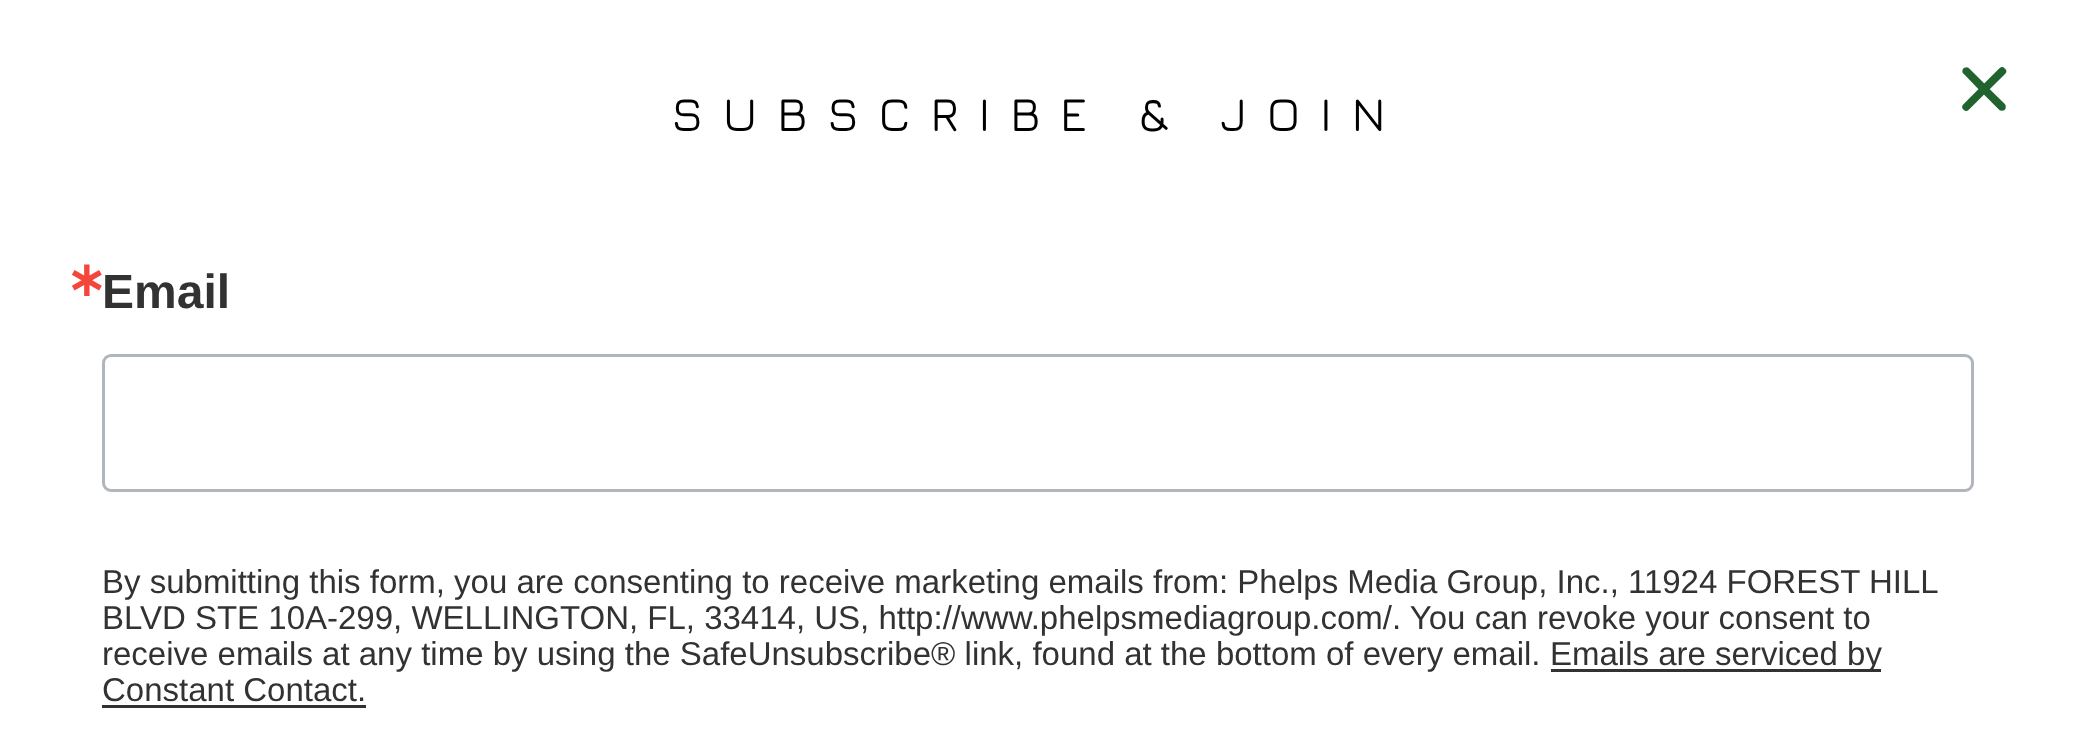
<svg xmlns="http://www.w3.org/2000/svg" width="2076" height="739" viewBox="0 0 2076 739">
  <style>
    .t1 { font: 500 48px Jura; letter-spacing: 19.25px; fill: #000; }
    .t2 { font: bold 48px DejaVu Sans; fill: #f5463b; }
    .t3 { font: bold 48px Liberation Sans; fill: #323232; }
    .t4 { font: 33px Liberation Sans; fill: #323232; }
  </style>
  <rect width="100%" height="100%" fill="#fff"/>
  <image x="1962" y="67" width="45" height="44" href="images/1.png"/>
  <text x="671" y="131" class="t1">SUBSCRIBE &amp; JOIN</text>
  <text x="66" y="296" class="t2">∗</text>
  <text x="102" y="308" class="t3">Email</text>
  <rect x="103.5" y="355.5" width="1869" height="135" rx="7.5" fill="none" stroke="#b0b6bb" stroke-width="3"/>
  <text x="102" y="593" class="t4">By submitting this form, you are consenting to receive marketing emails from: Phelps Media Group, Inc., 11924 FOREST HILL</text>
  <text x="102" y="629" class="t4">BLVD STE 10A-299, WELLINGTON, FL, 33414, US, http://www.phelpsmediagroup.com/. You can revoke your consent to</text>
  <text x="102" y="665" class="t4">receive emails at any time by using the SafeUnsubscribe® link, found at the bottom of every email.</text>
  <rect x="1551" y="669" width="330" height="3" fill="#323232"/>
  <text x="1550" y="665" class="t4">Emails are serviced by</text>
  <text x="102" y="701" class="t4">Constant Contact.</text>
  <rect x="102" y="705" width="264" height="3" fill="#323232"/>
</svg>
